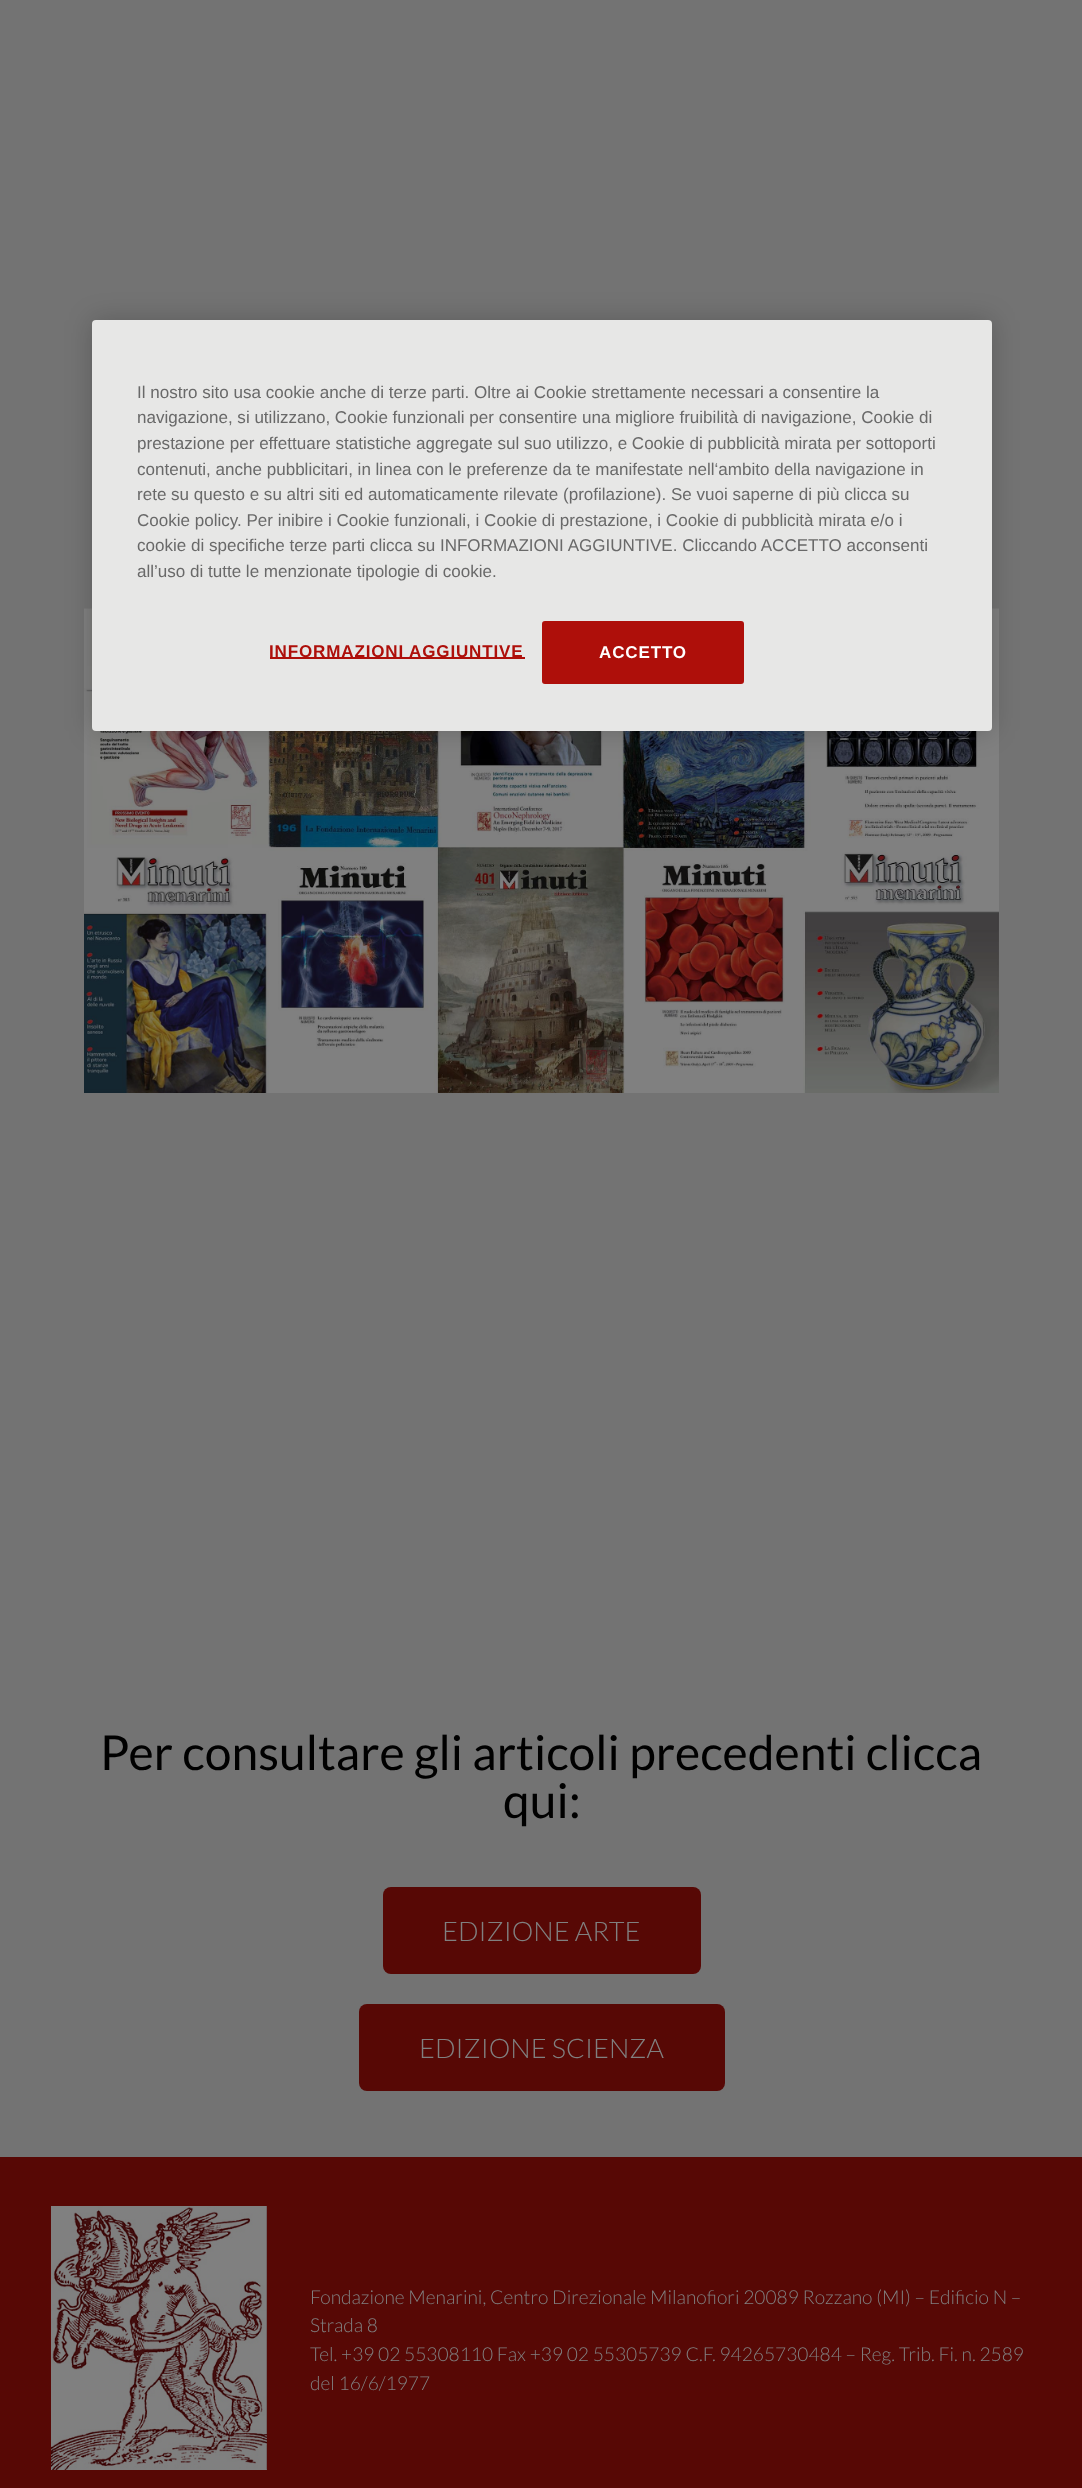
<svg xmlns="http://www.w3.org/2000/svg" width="1082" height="2488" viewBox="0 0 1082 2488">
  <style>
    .t1 { font: 17.05px Liberation Sans; fill: #696969; }
    .t2 { font: bold 17.05px Liberation Sans; letter-spacing: 0.85px; fill: #ae0f0a; }
    .t3 { font: bold 17.05px Liberation Sans; letter-spacing: 0.85px; fill: #fff; }
    .t4 { font: 48px Lato; fill: #000; }
    .t5 { font: 300 27px Lato; fill: #808080; }
    .t6 { font: 300 19.2px Lato; fill: #808080; }
  </style>
  <rect width="100%" height="100%" fill="#570805"/>
  <rect x="0" y="0" width="1082" height="2157" fill="#737373"/>
  <image x="84" y="608" width="915" height="485" href="images/1.png"/>
  <rect x="92" y="320" width="900" height="411" rx="4" fill="#00000033" filter="blur(13.5px)"/>
  <rect x="92" y="320" width="900" height="411" rx="4" fill="#e7e7e6"/>
  <text x="137" y="398" class="t1">Il nostro sito usa cookie anche di terze parti. Oltre ai Cookie strettamente necessari a consentire la</text>
  <text x="137" y="423" class="t1">navigazione, si utilizzano, Cookie funzionali per consentire una migliore fruibilità di navigazione, Cookie di</text>
  <text x="137" y="449" class="t1">prestazione per effettuare statistiche aggregate sul suo utilizzo, e Cookie di pubblicità mirata per sottoporti</text>
  <text x="137" y="475" class="t1">contenuti, anche pubblicitari, in linea con le preferenze da te manifestate nell‘ambito della navigazione in</text>
  <text x="137" y="500" class="t1">rete su questo e su altri siti ed automaticamente rilevate (profilazione). Se vuoi saperne di più clicca su</text>
  <text x="137" y="526" class="t1">Cookie policy. Per inibire i Cookie funzionali, i Cookie di prestazione, i Cookie di pubblicità mirata e/o i</text>
  <text x="137" y="551" class="t1">cookie di specifiche terze parti clicca su INFORMAZIONI AGGIUNTIVE. Cliccando ACCETTO acconsenti</text>
  <text x="137" y="577" class="t1">all’uso di tutte le menzionate tipologie di cookie.</text>
  <rect x="270" y="657" width="255" height="2" fill="#ae0f0a"/>
  <text x="269" y="657" class="t2">INFORMAZIONI AGGIUNTIVE</text>
  <rect x="543" y="622" width="200" height="61" rx="2" fill="#ae0f0a" stroke="#ae0f0a" stroke-width="2"/>
  <text x="599" y="658" class="t3">ACCETTO</text>
  <text x="100" y="1770" class="t4">Per consultare gli articoli precedenti clicca</text>
  <text x="503" y="1818" class="t4">qui:</text>
  <rect x="383" y="1887" width="318" height="87" rx="8" fill="#570805"/>
  <text x="442" y="1941" class="t5">EDIZIONE ARTE</text>
  <rect x="359" y="2004" width="366" height="87" rx="8" fill="#570805"/>
  <text x="419" y="2058" class="t5">EDIZIONE SCIENZA</text>
  <image x="51" y="2206" width="216" height="264" href="images/2.png"/>
  <text x="310" y="2304" class="t6">Fondazione Menarini, Centro Direzionale Milanofiori 20089 Rozzano (MI) – Edificio N –</text>
  <text x="310" y="2332" class="t6">Strada 8</text>
  <text x="310" y="2361" class="t6">Tel. +39 02 55308110 Fax +39 02 55305739 C.F. 94265730484 – Reg. Trib. Fi. n. 2589</text>
  <text x="310" y="2390" class="t6">del 16/6/1977</text>
</svg>
